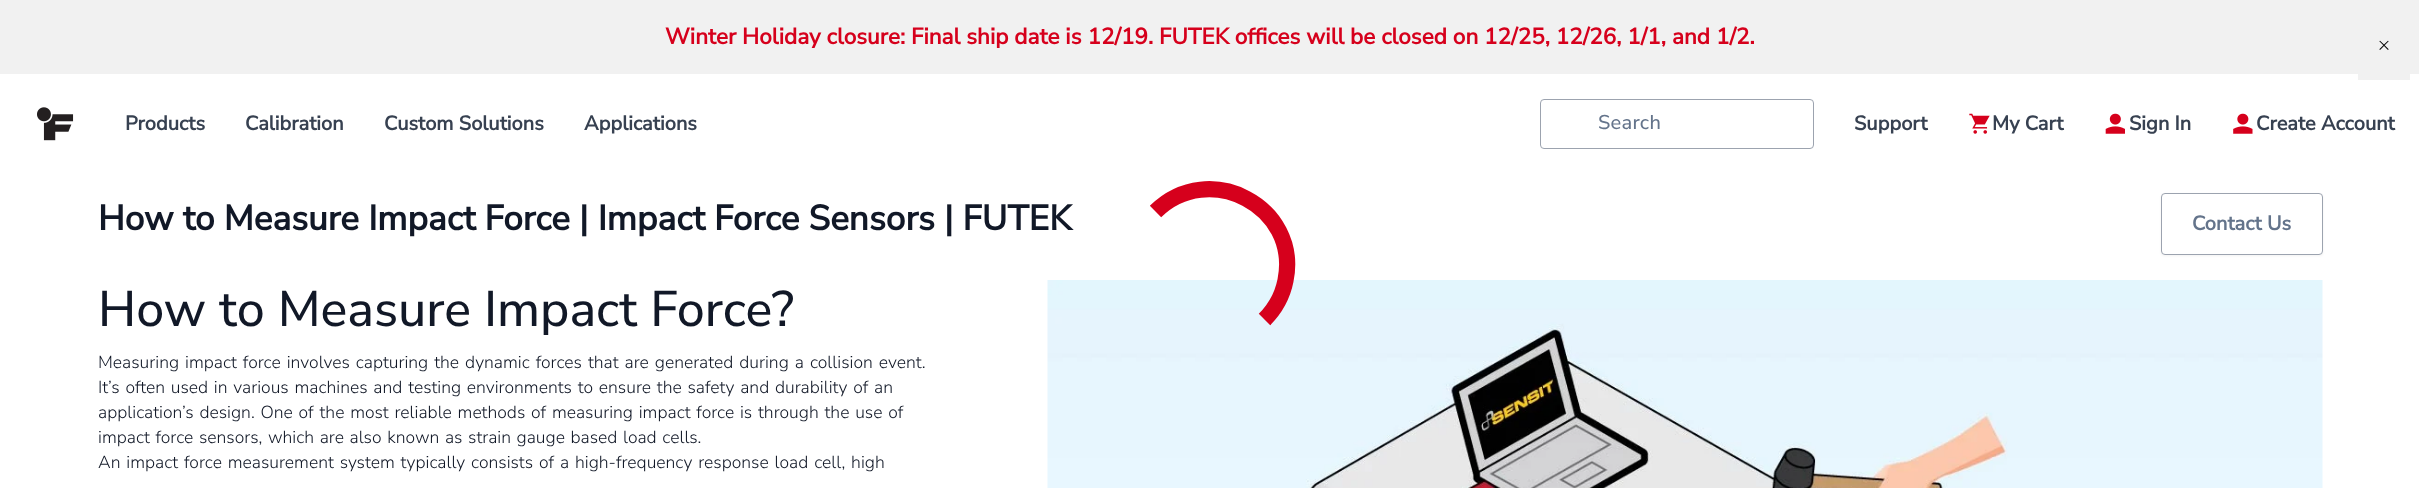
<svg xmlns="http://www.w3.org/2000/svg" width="2419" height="488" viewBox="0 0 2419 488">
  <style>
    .t1 { font: bold 22.5px Nunito Sans; fill: #d6001c; }
    .t2 { font: 300 20px Nunito Sans; fill: #000; }
    .t3 { font: bold 20px Nunito Sans; fill: #374151; }
    .t4 { font: 500 20px Nunito Sans; letter-spacing: 0.25px; fill: #64748b; }
    .t5 { font: bold 35px Nunito Sans; fill: #111827; }
    .t6 { font: bold 20px Nunito Sans; fill: #64748b; }
    .t7 { font: 500 50px Nunito Sans; fill: #111827; }
    .t8 { font: 300 17.5px Nunito Sans; fill: #111827; }
  </style>
  <rect width="100%" height="100%" fill="#fff"/>
  <rect x="0" y="0" width="2419" height="74" fill="#f1f1f1"/>
  <text x="665" y="44" class="t1">Winter Holiday closure: Final ship date is 12/19. FUTEK offices will be closed on 12/25, 12/26, 1/1, and 1/2.</text>
  <rect x="2358" y="74" width="52" height="6" fill="#f1f1f1"/>
  <text x="2378" y="51" class="t2">×</text>
  <image x="37" y="107" width="37" height="34" href="images/1.png"/>
  <text x="125" y="130" class="t3">Products</text>
  <text x="245" y="130" class="t3">Calibration</text>
  <text x="384" y="130" class="t3">Custom Solutions</text>
  <text x="584" y="130" class="t3">Applications</text>
  <rect x="1540.5" y="99.5" width="273" height="49" rx="3.5" fill="none" stroke="#9ca3af"/>
  <text x="1598" y="129" class="t4">Search</text>
  <text x="1854" y="130" class="t3">Support</text>
  <image x="1969" y="113" width="21" height="21" href="images/2.png"/>
  <text x="1992" y="130" class="t3">My Cart</text>
  <image x="2105" y="113" width="20" height="21" href="images/3.png"/>
  <text x="2129" y="130" class="t3">Sign In</text>
  <image x="2233" y="113" width="20" height="21" href="images/4.png"/>
  <text x="2256" y="130" class="t3">Create Account</text>
  <text x="98" y="230" class="t5">How to Measure Impact Force | Impact Force Sensors | FUTEK</text>
  <rect x="2161" y="194" width="162" height="62" rx="4" fill="#0a0d120d" filter="blur(1px)"/>
  <rect x="2161.5" y="193.5" width="161" height="61" rx="3.5" fill="#fff" stroke="#9ca3af"/>
  <text x="2192" y="230" class="t6">Contact Us</text>
  <text x="98" y="326" class="t7">How to Measure Impact Force?</text>
  <text x="98" y="368" word-spacing="1.6" class="t8">Measuring impact force involves capturing the dynamic forces that are generated during a collision event.</text>
  <text x="98" y="393" word-spacing="1.4" class="t8">It’s often used in various machines and testing environments to ensure the safety and durability of an</text>
  <text x="98" y="418" word-spacing="1.4" class="t8">application’s design. One of the most reliable methods of measuring impact force is through the use of</text>
  <text x="98" y="443" word-spacing="1.25" class="t8">impact force sensors, which are also known as strain gauge based load cells.</text>
  <text x="98" y="468" word-spacing="1.5" class="t8">An impact force measurement system typically consists of a high-frequency response load cell, high</text>
  <image x="1047" y="280" width="1276" height="208" href="images/5.png"/>
  <path d="M1155.5 211.5C1209 159 1300.5 206.5 1285.5 280.5C1282.5 295.5 1275 309 1264.5 319.5" fill="none" stroke="#d6001c" stroke-width="16.2"/>
</svg>
